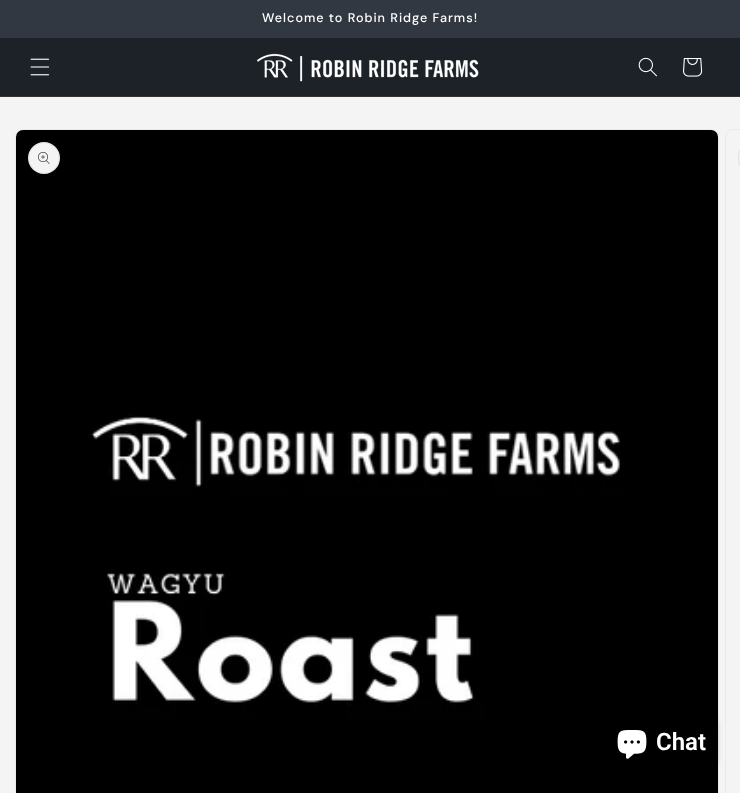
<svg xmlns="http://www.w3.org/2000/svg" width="740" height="793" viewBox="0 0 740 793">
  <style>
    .t1 { font: 500 12.6px DM Sans; letter-spacing: 1px; fill: #fff; }
    .t2 { font: 600 24px Roboto; fill: #fff; }
  </style>
  <defs>
    <clipPath id="clip1"><path d="M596 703H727V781H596ZM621 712H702C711 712 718 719 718 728V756C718 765 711 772 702 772H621C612 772 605 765 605 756V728C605 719 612 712 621 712Z" clip-rule="evenodd"/></clipPath>
  </defs>
  <rect width="100%" height="100%" fill="#f4f4f4"/>
  <rect x="0" y="0" width="740" height="38" fill="#323841"/>
  <text x="262" y="22" class="t1">Welcome to Robin Ridge Farms!</text>
  <rect x="0" y="38" width="740" height="58" fill="#1c2228"/>
  <rect x="0" y="96" width="740" height="1" fill="#2e3439"/>
  <image x="30" y="58" width="20" height="18" href="images/1.png"/>
  <image x="257" y="53" width="222" height="29" href="images/2.png"/>
  <image x="638" y="57" width="19" height="20" href="images/3.png"/>
  <image x="683" y="58" width="20" height="19" href="images/4.png"/>
  <rect x="15.5" y="129.5" width="703" height="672" rx="7.5" fill="none" stroke="#eaeaea"/>
  <image x="16" y="130" width="702" height="663" href="images/5.png"/>
  <circle cx="44" cy="158" r="16" fill="#f4f4f4"/>
  <circle cx="44" cy="158" r="15.5" fill="none" stroke="#2b2c2d1a"/>
  <image x="38" y="152" width="12" height="12" href="images/6.png"/>
  <rect x="725.5" y="129.5" width="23" height="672" rx="7.5" fill="none" stroke="#eaeaea"/>
  <rect x="738.5" y="142.5" width="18" height="31" rx="15.5" fill="none" stroke="#e0e0e0"/>
  <g clip-path="url(#clip1)">
    <rect x="605" y="712" width="113" height="60" rx="16" fill="#00000026" filter="blur(2.5px)"/>
  </g>
  <image x="617" y="730" width="30" height="29" href="images/7.png"/>
  <text x="656" y="750" class="t2">Chat</text>
</svg>
